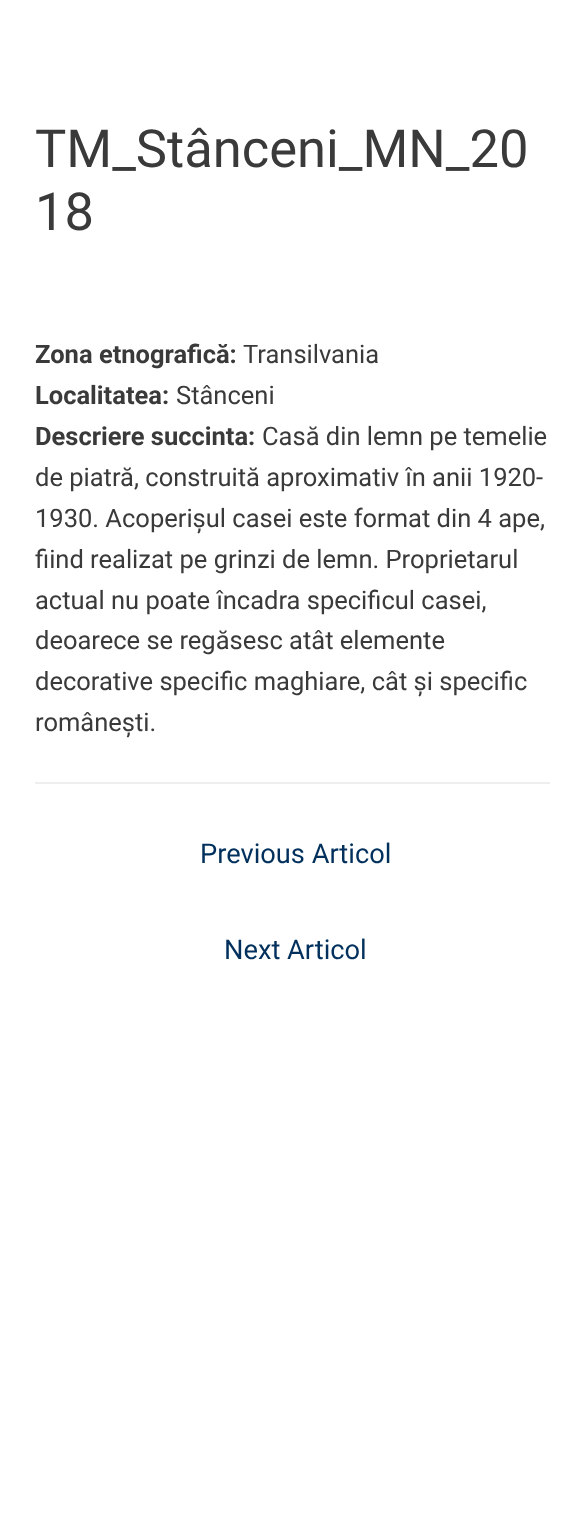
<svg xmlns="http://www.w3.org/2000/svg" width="584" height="1529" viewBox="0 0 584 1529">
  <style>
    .t1 { font: 52.5px Roboto; fill: #3a3a3a; }
    .t2 { font: bold 25.5px Roboto; fill: #3a3a3a; }
    .t3 { font: 25.5px Roboto; fill: #3a3a3a; }
    .t4 { font: 27.25px Roboto; fill: #00305b; }
  </style>
  <rect width="100%" height="100%" fill="#fff"/>
  <text x="35" y="167" class="t1">TM_Stânceni_MN_20</text>
  <text x="35" y="230" class="t1">18</text>
  <text x="35" y="363" class="t2">Zona etnografică:</text>
  <text x="243" y="363" class="t3">Transilvania</text>
  <text x="35" y="404" class="t2">Localitatea:</text>
  <text x="176" y="404" class="t3">Stânceni</text>
  <text x="35" y="445" class="t2">Descriere succinta:</text>
  <text x="262" y="445" class="t3">Casă din lemn pe temelie</text>
  <text x="35" y="486" class="t3">de piatră, construită aproximativ în anii 1920-</text>
  <text x="35" y="527" class="t3">1930. Acoperișul casei este format din 4 ape,</text>
  <text x="35" y="568" class="t3">fiind realizat pe grinzi de lemn. Proprietarul</text>
  <text x="35" y="609" class="t3">actual nu poate încadra specificul casei,</text>
  <text x="35" y="649" class="t3">deoarece se regăsesc atât elemente</text>
  <text x="35" y="690" class="t3">decorative specific maghiare, cât și specific</text>
  <text x="35" y="731" class="t3">românești.</text>
  <rect x="35" y="782" width="515" height="2" fill="#eee"/>
  <text x="200" y="863" class="t4">Previous Articol</text>
  <text x="224" y="959" class="t4">Next Articol</text>
</svg>
